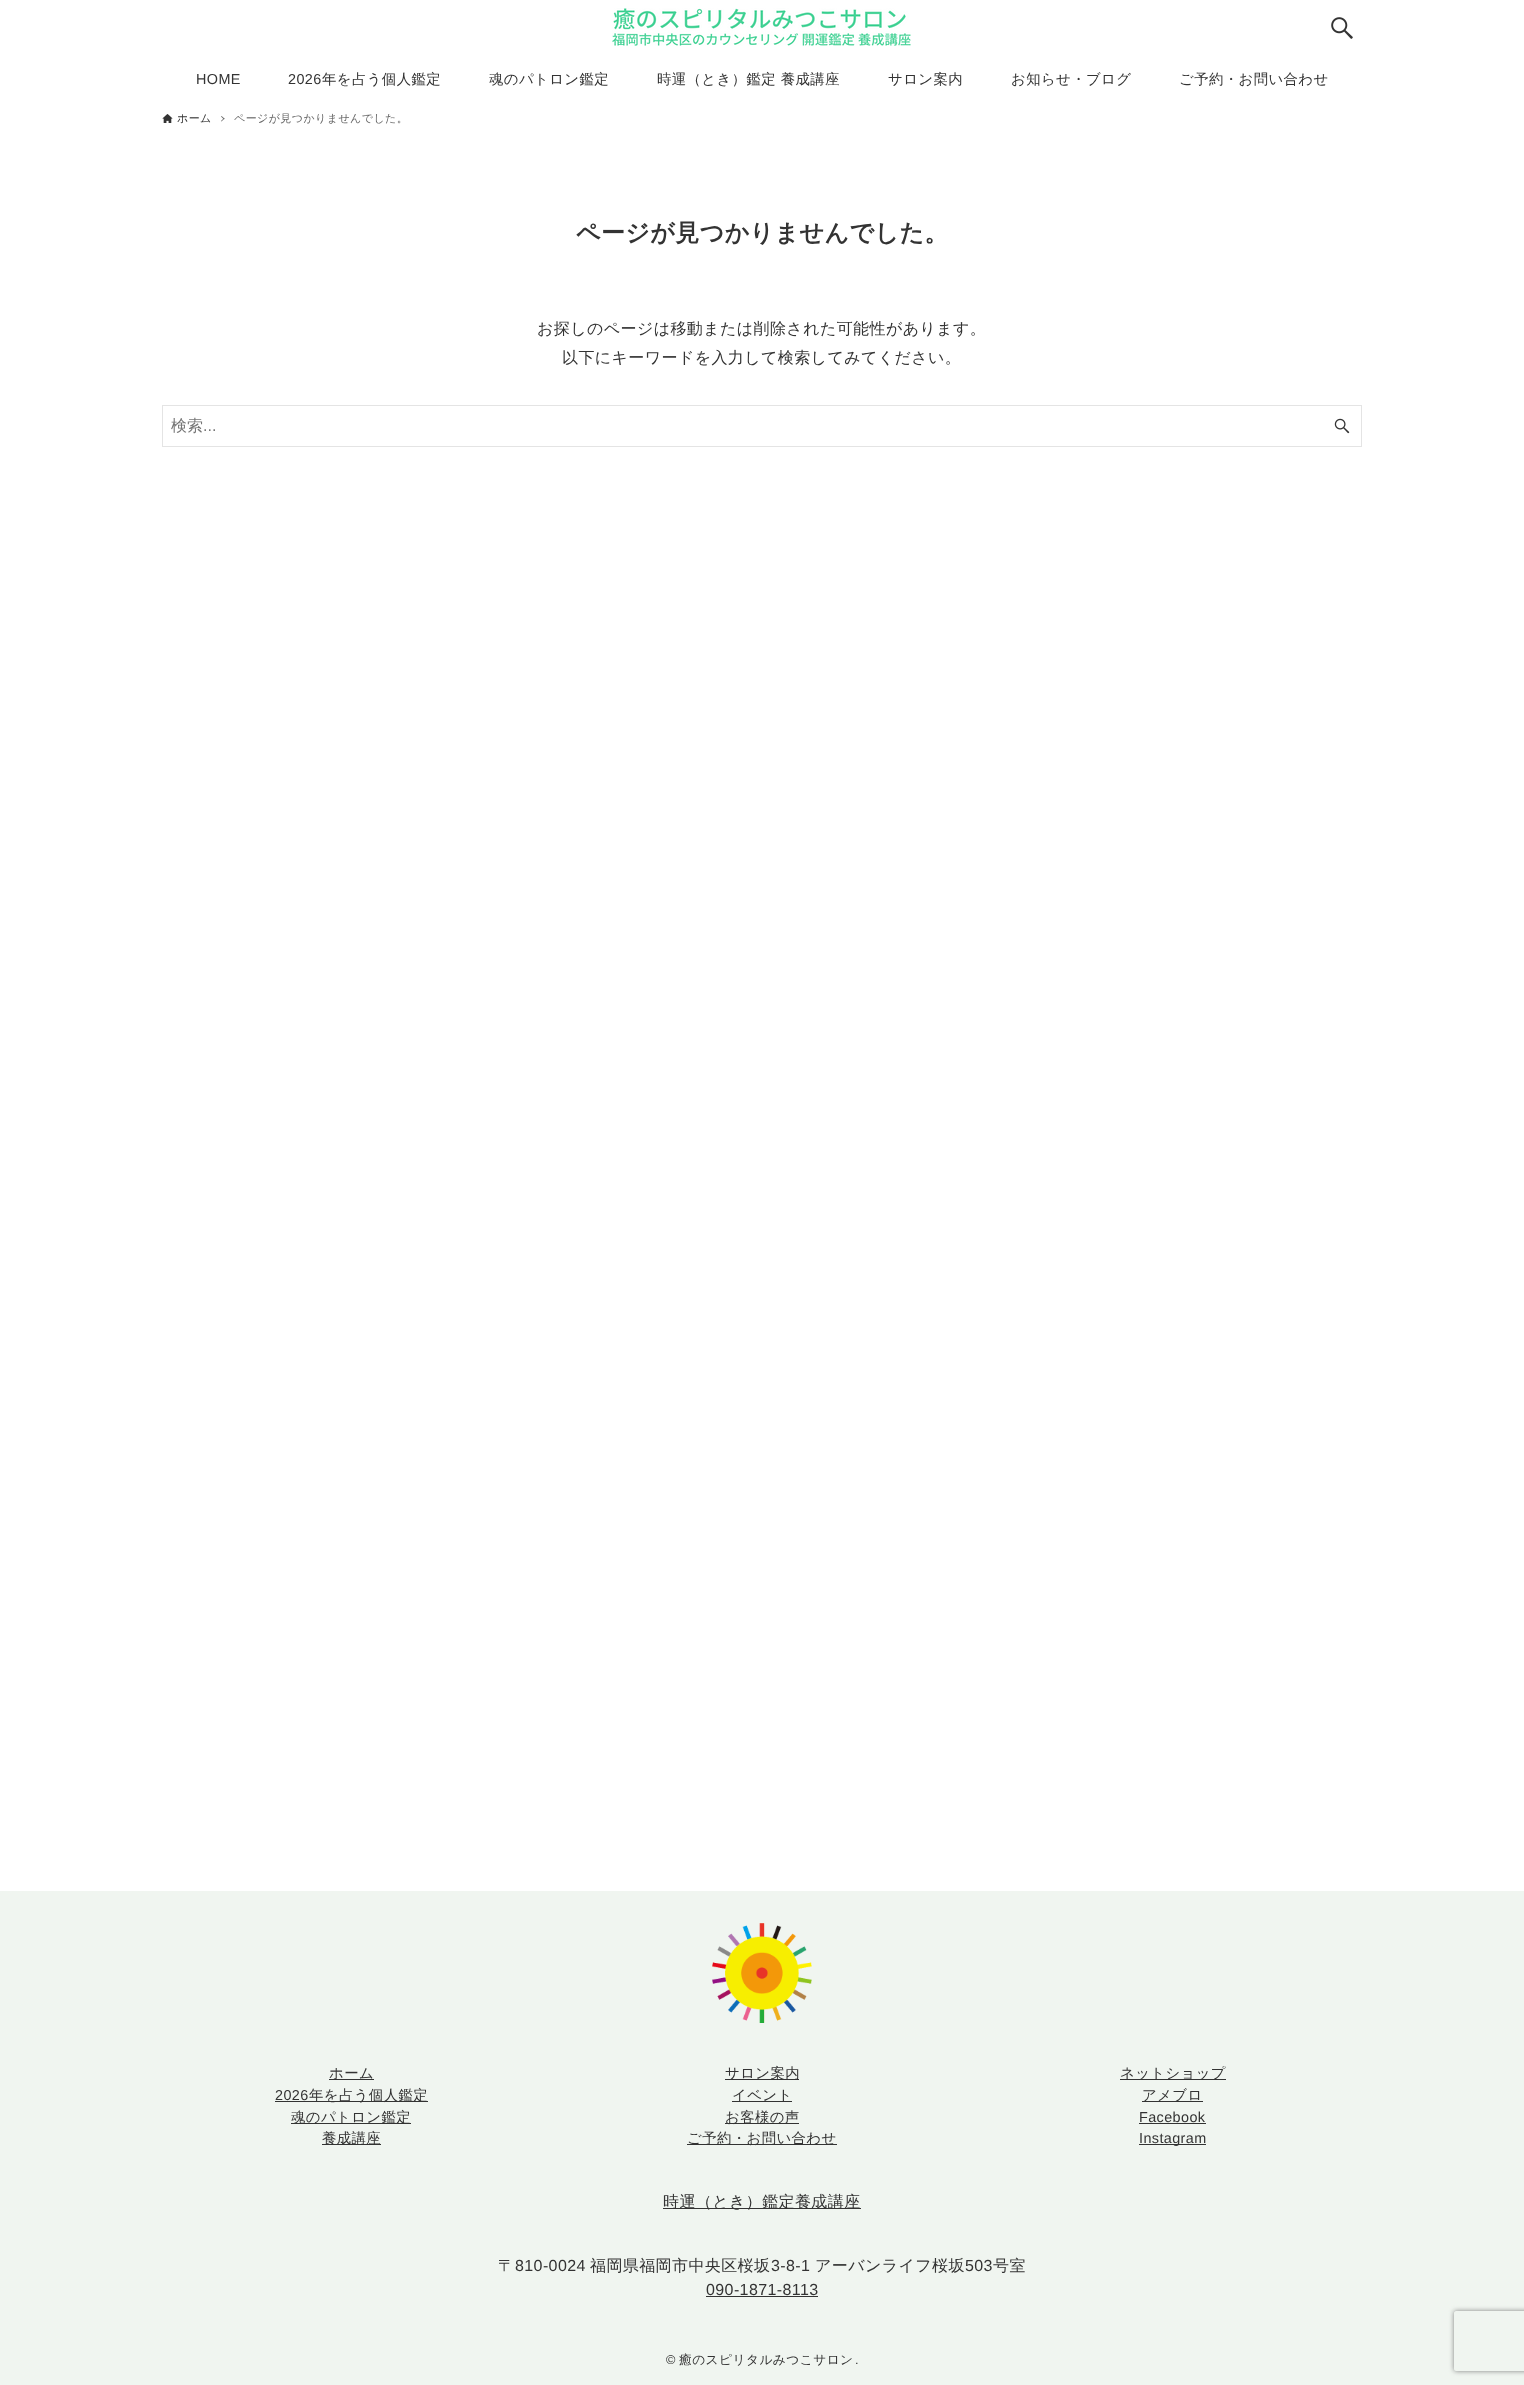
<svg xmlns="http://www.w3.org/2000/svg" width="1524" height="2385" viewBox="0 0 1524 2385">
  <style>
    .t1 { font: 14.4px Liberation Sans; letter-spacing: 0.4px; fill: #333; }
    .t2 { font: 500 14.4px WenQuanYi Zen Hei; letter-spacing: 0.4px; fill: #333; }
    .t3 { font: 500 11px WenQuanYi Zen Hei; letter-spacing: 0.4px; fill: #333; }
    .t4 { font: 500 11px WenQuanYi Zen Hei; letter-spacing: 0.4px; fill: #666; }
    .t5 { font: bold 24px WenQuanYi Zen Hei; letter-spacing: 0.4px; fill: #333; }
    .t6 { font: 500 16px WenQuanYi Zen Hei; letter-spacing: 0.4px; fill: #333; }
    .t7 { font: 500 16px WenQuanYi Zen Hei; fill: #757575; }
    .t8 { font: 16px Liberation Sans; fill: #757575; }
    .t9 { font: 16px Liberation Sans; letter-spacing: 0.4px; fill: #333; }
    .t10 { font: 12.75px Liberation Sans; letter-spacing: 0.4px; fill: #333; }
    .t11 { font: 500 12.75px WenQuanYi Zen Hei; letter-spacing: 0.4px; fill: #333; }
  </style>
  <defs>
    <clipPath id="clip1"><path d="M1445 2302H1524V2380H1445ZM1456 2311H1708C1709 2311 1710 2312 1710 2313V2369C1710 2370 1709 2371 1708 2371H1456C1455 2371 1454 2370 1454 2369V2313C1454 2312 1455 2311 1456 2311Z" clip-rule="evenodd"/></clipPath>
  </defs>
  <rect width="100%" height="100%" fill="#fff"/>
  <image x="612" y="8" width="299" height="38" href="images/1.png"/>
  <image x="1331" y="17" width="22" height="22" href="images/2.png"/>
  <text x="196" y="84" class="t1">HOME</text>
  <text x="288" y="84" class="t1">2026</text>
  <text x="322" y="84" class="t2">年を占う個人鑑定</text>
  <text x="489" y="84" class="t2">魂のパトロン鑑定</text>
  <text x="657" y="84" class="t2">時運（とき）鑑定 養成講座</text>
  <text x="888" y="84" class="t2">サロン案内</text>
  <text x="1011" y="84" class="t2">お知らせ・ブログ</text>
  <text x="1179" y="84" class="t2">ご予約・お問い合わせ</text>
  <image x="162" y="114" width="11" height="9" href="images/3.png"/>
  <text x="177" y="122" class="t3">ホーム</text>
  <path d="M221.5 116L224.5 118.5L224 119.5L221 116.5Z" fill="#666"/>
  <path d="M224 118L224.5 118.5L221.5 121.5L221 121Z" fill="#666"/>
  <text x="234" y="122" class="t4">ページが見つかりませんでした。</text>
  <text x="576" y="241" class="t5">ページが見つかりませんでした。</text>
  <text x="537" y="334" class="t6">お探しのページは移動または削除された可能性があります。</text>
  <text x="562" y="363" class="t6">以下にキーワードを入力して検索してみてください。</text>
  <rect x="162.5" y="405.5" width="1199" height="41" fill="none" stroke="#e4e4e4"/>
  <text x="171" y="431" class="t7">検索</text>
  <text x="203" y="431" class="t8">...</text>
  <image x="1334" y="418" width="16" height="16" href="images/4.png"/>
  <rect x="0" y="1891" width="1524" height="494" fill="#f0f5f0"/>
  <image x="712" y="1923" width="100" height="100" href="images/5.png"/>
  <rect x="329" y="2079" width="45" height="1" fill="#333"/>
  <text x="329" y="2078" class="t2">ホーム</text>
  <text x="275" y="2100" class="t1">2026</text>
  <rect x="275" y="2101" width="153" height="1" fill="#333"/>
  <text x="309" y="2100" class="t2">年を占う個人鑑定</text>
  <rect x="291" y="2123" width="120" height="1" fill="#333"/>
  <text x="291" y="2122" class="t2">魂のパトロン鑑定</text>
  <rect x="322" y="2144" width="59" height="1" fill="#333"/>
  <text x="322" y="2143" class="t2">養成講座</text>
  <rect x="725" y="2079" width="74" height="1" fill="#333"/>
  <text x="725" y="2078" class="t2">サロン案内</text>
  <rect x="732" y="2101" width="60" height="1" fill="#333"/>
  <text x="732" y="2100" class="t2">イベント</text>
  <rect x="725" y="2123" width="74" height="1" fill="#333"/>
  <text x="725" y="2122" class="t2">お客様の声</text>
  <rect x="687" y="2144" width="150" height="1" fill="#333"/>
  <text x="687" y="2143" class="t2">ご予約・お問い合わせ</text>
  <rect x="1120" y="2079" width="106" height="1" fill="#333"/>
  <text x="1120" y="2078" class="t2">ネットショップ</text>
  <rect x="1142" y="2101" width="61" height="1" fill="#333"/>
  <text x="1142" y="2100" class="t2">アメブロ</text>
  <text x="1139" y="2122" class="t1">Facebook</text>
  <rect x="1139" y="2123" width="67" height="1" fill="#333"/>
  <rect x="1139" y="2144" width="67" height="1" fill="#333"/>
  <text x="1139" y="2143" class="t1">Instagram</text>
  <rect x="663" y="2208" width="198" height="1" fill="#333"/>
  <text x="663" y="2207" class="t6">時運（とき）鑑定養成講座</text>
  <text x="498" y="2271" class="t6">〒</text>
  <text x="515" y="2271" class="t9">810-0024</text>
  <text x="590" y="2271" class="t6">福岡県福岡市中央区桜坂</text>
  <text x="771" y="2271" class="t9">3-8-1</text>
  <text x="815" y="2271" class="t6">アーバンライフ桜坂</text>
  <text x="965" y="2271" class="t9">503</text>
  <text x="993" y="2271" class="t6">号室</text>
  <text x="706" y="2295" class="t9">090-1871-8113</text>
  <rect x="706" y="2296" width="112" height="1" fill="#333"/>
  <text x="666" y="2364" class="t10">©</text>
  <text x="679" y="2364" class="t11">癒のスピリタルみつこサロン</text>
  <text x="855" y="2364" class="t10">.</text>
  <g clip-path="url(#clip1)">
    <rect x="1454" y="2311" width="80" height="60" rx="2" fill="#808080" filter="blur(2.5px)"/>
  </g>
</svg>
